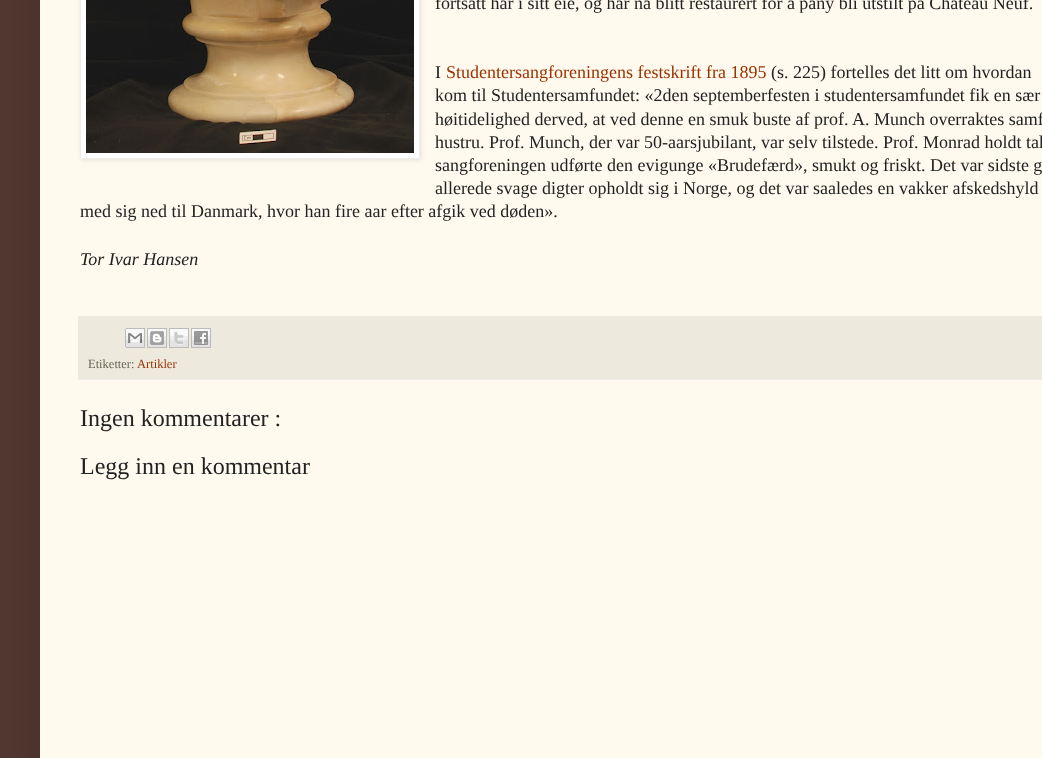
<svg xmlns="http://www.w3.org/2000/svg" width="1042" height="758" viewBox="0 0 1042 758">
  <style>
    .t1 { font: 18px Liberation Serif; fill: #222; }
    .t2 { font: 18px Liberation Serif; fill: #993200; }
    .t3 { font: italic 18px Liberation Serif; fill: #222; }
    .t4 { font: 12.5px Liberation Serif; fill: #666555; }
    .t5 { font: 12.5px Liberation Serif; fill: #993200; }
    .t6 { font: 24px Liberation Serif; fill: #222; }
  </style>
  <rect width="100%" height="100%" fill="#513831"/>
  <rect x="40" y="-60" width="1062" height="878" fill="#00000026" filter="blur(20px)"/>
  <rect x="40" y="0" width="1002" height="758" fill="#fff9ee"/>
  <rect x="81" y="-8" width="340" height="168" fill="#0000001a" filter="blur(2.5px)"/>
  <rect x="80.5" y="-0.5" width="339" height="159" fill="#fff" stroke="#eee"/>
  <image x="86" y="0" width="328" height="153" href="images/1.png"/>
  <text x="435" y="9" class="t1">fortsatt har i sitt eie, og har nå blitt restaurert for å påny bli utstilt på Chateau Neuf.</text>
  <text x="435" y="78" class="t1">I</text>
  <text x="446" y="78" class="t2">Studentersangforeningens festskrift fra 1895</text>
  <text x="771" y="78" class="t1">(s. 225) fortelles det litt om hvordan</text>
  <text x="435" y="101" class="t1">kom til Studentersamfundet: «2den septemberfesten i studentersamfundet fik en sær</text>
  <text x="435" y="125" class="t1">høitidelighed derved, at ved denne en smuk buste af prof. A. Munch overraktes samf</text>
  <text x="435" y="148" class="t1">hustru. Prof. Munch, der var 50-aarsjubilant, var selv tilstede. Prof. Monrad holdt tal</text>
  <text x="435" y="171" class="t1">sangforeningen udførte den evigunge «Brudefærd», smukt og friskt. Det var sidste g</text>
  <text x="435" y="194" class="t1">allerede svage digter opholdt sig i Norge, og det var saaledes en vakker afskedshyld</text>
  <text x="80" y="217" class="t1">med sig ned til Danmark, hvor han fire aar efter afgik ved døden».</text>
  <text x="80" y="265" class="t3">Tor Ivar Hansen</text>
  <rect x="78" y="316" width="964" height="63" fill="#eee9dd"/>
  <rect x="78" y="379" width="964" height="1" fill="#eee"/>
  <image x="125" y="328" width="20" height="20" href="images/2.png"/>
  <image x="147" y="328" width="20" height="20" href="images/3.png"/>
  <image x="169" y="328" width="20" height="20" href="images/4.png"/>
  <image x="191" y="328" width="20" height="20" href="images/5.png"/>
  <text x="88" y="368" class="t4">Etiketter:</text>
  <text x="137" y="368" class="t5">Artikler</text>
  <text x="80" y="426" class="t6">Ingen kommentarer :</text>
  <text x="80" y="474" class="t6">Legg inn en kommentar</text>
</svg>
